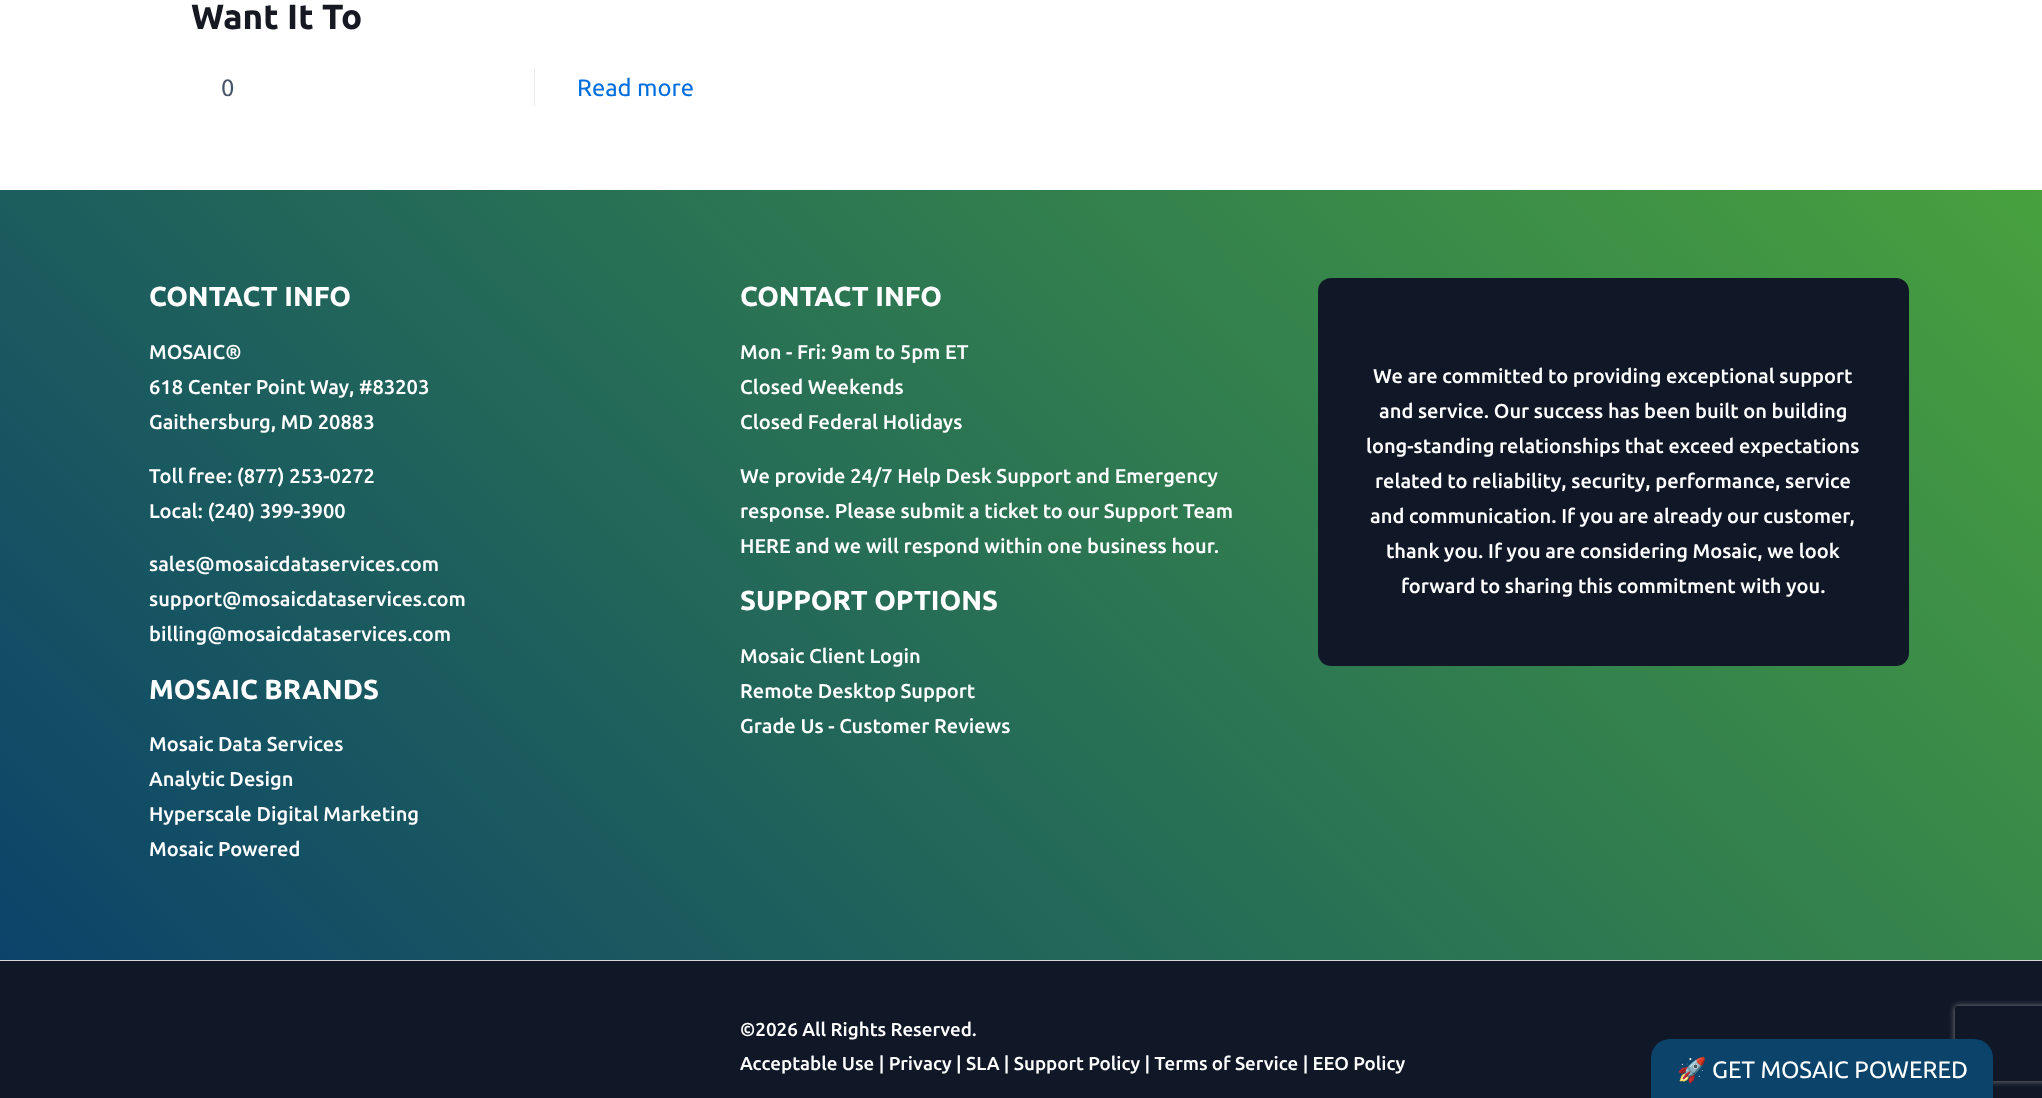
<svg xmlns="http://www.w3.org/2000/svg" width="2042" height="1098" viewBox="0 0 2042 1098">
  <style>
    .t1 { font: bold 35px Ubuntu; fill: #161922; }
    .t2 { font: 23.75px Ubuntu; fill: #485467; }
    .t3 { font: 23.75px Ubuntu; fill: #006edf; }
    .t4 { font: bold 27.5px Ubuntu; fill: #fff; }
    .t5 { font: 500 20px Ubuntu; fill: #fff; }
    .t6 { font: 500 18.75px Ubuntu; fill: #fff; }
    .t7 { font: 23.75px Noto Color Emoji; fill: #fff; }
    .t8 { font: 23.75px Ubuntu; fill: #fff; }
  </style>
  <defs>
    <linearGradient id="g1" gradientUnits="userSpaceOnUse" x1="318" y1="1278" x2="1724" y2="-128"><stop offset="0" stop-color="#0b436a"/><stop offset="1" stop-color="#48a13e"/></linearGradient>
    <clipPath id="clip1"><path d="M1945 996H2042V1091H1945ZM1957.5 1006H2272.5C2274 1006 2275 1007 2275 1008.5V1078.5C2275 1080 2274 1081 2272.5 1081H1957.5C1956 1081 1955 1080 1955 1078.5V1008.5C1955 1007 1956 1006 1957.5 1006Z" clip-rule="evenodd"/></clipPath>
  </defs>
  <rect width="100%" height="100%" fill="#fff"/>
  <text x="191" y="29" class="t1">Want It To</text>
  <text x="221" y="96" class="t2">0</text>
  <rect x="534" y="69" width="1" height="37" fill="#ebebeb"/>
  <text x="577" y="96" class="t3">Read more</text>
  <rect x="0" y="190" width="2042" height="770" fill="url(#g1)"/>
  <text x="149" y="306" class="t4">CONTACT INFO</text>
  <text x="149" y="359" class="t5">MOSAIC®</text>
  <text x="149" y="394" class="t5">‍618 Center Point Way, #83203</text>
  <text x="149" y="429" class="t5">Gaithersburg, MD 20883</text>
  <text x="149" y="483" class="t5">Toll free: (877) 253-0272</text>
  <text x="149" y="518" class="t5">Local: (240) 399-3900</text>
  <text x="149" y="571" class="t5">sales@mosaicdataservices.com</text>
  <text x="149" y="606" class="t5">support@mosaicdataservices.com</text>
  <text x="149" y="641" class="t5">billing@mosaicdataservices.com</text>
  <text x="149" y="699" class="t4">MOSAIC BRANDS</text>
  <text x="149" y="751" class="t5">Mosaic Data Services</text>
  <text x="149" y="786" class="t5">Analytic Design</text>
  <text x="149" y="821" class="t5">Hyperscale Digital Marketing</text>
  <text x="149" y="856" class="t5">Mosaic Powered</text>
  <text x="740" y="306" class="t4">CONTACT INFO</text>
  <text x="740" y="359" class="t5">Mon - Fri: 9am to 5pm ET</text>
  <text x="740" y="394" class="t5">Closed Weekends</text>
  <text x="740" y="429" class="t5">Closed Federal Holidays</text>
  <text x="740" y="483" class="t5">We provide 24/7 Help Desk Support and Emergency</text>
  <text x="740" y="518" class="t5">response. Please submit a ticket to our Support Team</text>
  <text x="740" y="553" class="t5">HERE and we will respond within one business hour.</text>
  <text x="740" y="610" class="t4">SUPPORT OPTIONS</text>
  <text x="740" y="663" class="t5">Mosaic Client Login</text>
  <text x="740" y="698" class="t5">Remote Desktop Support</text>
  <text x="740" y="733" class="t5">Grade Us - Customer Reviews</text>
  <rect x="1318" y="278" width="591" height="388" rx="13" fill="#101828"/>
  <text x="1373" y="383" class="t5">We are committed to providing exceptional support</text>
  <text x="1379" y="418" class="t5">and service. Our success has been built on building</text>
  <text x="1366" y="453" class="t5">long-standing relationships that exceed expectations</text>
  <text x="1375" y="488" class="t5">related to reliability, security, performance, service</text>
  <text x="1370" y="523" class="t5">and communication. If you are already our customer,</text>
  <text x="1386" y="558" class="t5">thank you. If you are considering Mosaic, we look</text>
  <text x="1401" y="593" class="t5">forward to sharing this commitment with you.</text>
  <rect x="0" y="961" width="2042" height="137" fill="#101828"/>
  <rect x="0" y="960" width="2042" height="1" fill="#d6d6d6"/>
  <text x="740" y="1036" class="t6">©2026 All Rights Reserved.</text>
  <text x="740" y="1070" class="t6">Acceptable Use | Privacy | SLA | Support Policy | Terms of Service | EEO Policy</text>
  <g clip-path="url(#clip1)">
    <rect x="1955" y="1006" width="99" height="75" rx="2.5" fill="#808080" filter="blur(3px)"/>
  </g>
  <path d="M1670 1039H1974C1984.5 1039 1993 1047.5 1993 1058V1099H1651V1058C1651 1047.5 1659.5 1039 1670 1039Z" fill="#0b436a"/>
  <text x="1677" y="1078" class="t7">🚀</text>
  <text x="1712" y="1078" class="t8">GET MOSAIC POWERED</text>
</svg>
